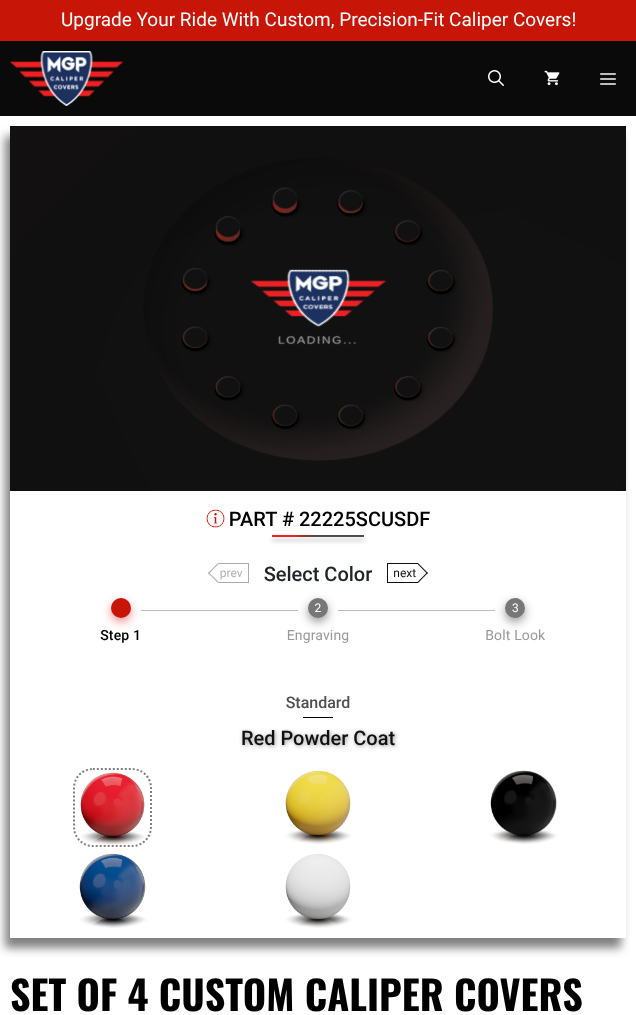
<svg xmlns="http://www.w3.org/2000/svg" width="636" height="1015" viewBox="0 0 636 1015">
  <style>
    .t1 { font: 19px Roboto; fill: #fff; }
    .t2 { font: bold 40px Oswald; fill: #000; }
  </style>
  <defs>
    <clipPath id="clip1"><path d="M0 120H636V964H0ZM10 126H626V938H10Z" clip-rule="evenodd"/></clipPath>
  </defs>
  <rect width="100%" height="100%" fill="#fff"/>
  <rect x="0" y="0" width="636" height="41" fill="#c71608"/>
  <text x="61" y="26" class="t1">Upgrade Your Ride With Custom, Precision-Fit Caliper Covers!</text>
  <rect x="0" y="41" width="636" height="75" fill="#0a0a0a"/>
  <image x="10" y="51" width="113" height="55" href="images/1.png"/>
  <image x="488" y="70" width="16" height="16" href="images/2.png"/>
  <image x="544" y="70" width="16" height="16" href="images/3.png"/>
  <image x="600" y="73" width="16" height="12" href="images/4.png"/>
  <g clip-path="url(#clip1)">
    <rect x="5" y="136" width="616" height="812" fill="#808080" filter="blur(5px)"/>
  </g>
  <image x="10" y="126" width="616" height="802" href="images/5.png"/>
  <text x="10" y="1011" class="t2">SET OF 4 CUSTOM CALIPER COVERS</text>
</svg>
